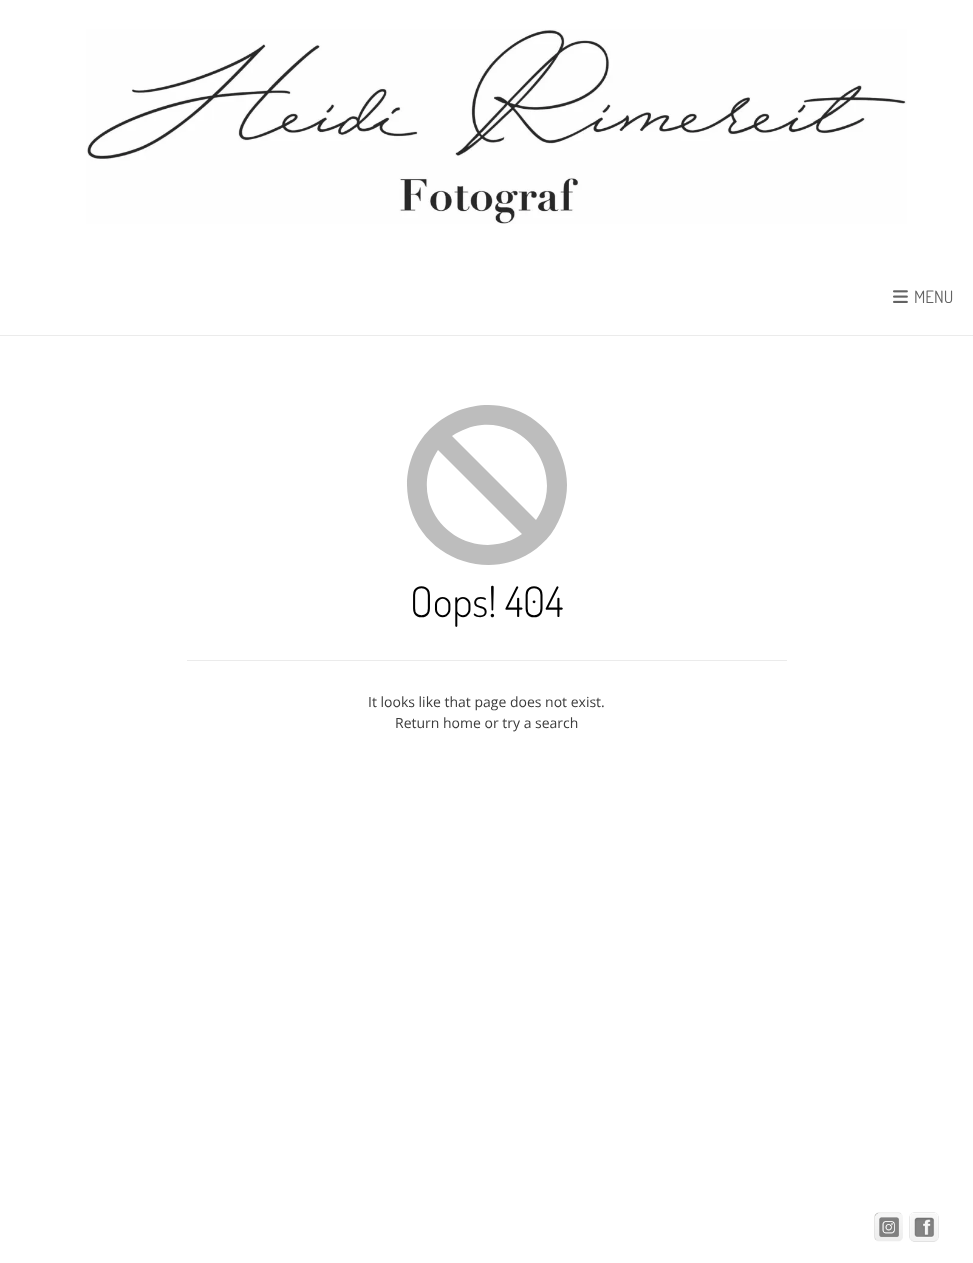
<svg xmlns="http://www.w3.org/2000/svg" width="973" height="1263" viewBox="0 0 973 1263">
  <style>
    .t1 { font: 17px Dosis; fill: #636363; }
    .t2 { font: 300 42px Dosis; fill: #000; }
    .t3 { font: 14px Open Sans; fill: #3c3c3c; }
  </style>
  <rect width="100%" height="100%" fill="#fff"/>
  <rect x="0" y="335" width="973" height="1" fill="#ebebeb"/>
  <image x="86" y="29" width="821" height="195" href="images/1.png"/>
  <image x="893" y="290" width="15" height="13" href="images/2.png"/>
  <text x="914" y="303" class="t1">MENU</text>
  <path d="M522 534L438 450C432 459 428 469 427 480C423 531 481 563 522 534ZM536 520C565 479 533 421 482 425C471 426 461 430 452 436ZM407 485C408 409 504 376 551 436C561 450 567 468 567 485C567 502 561 520 551 534C504 594 408 561 407 485Z" fill="#bdbdbd"/>
  <rect x="187" y="660" width="600" height="1" fill="#ebebeb"/>
  <text x="410" y="617" class="t2">Oops! 404</text>
  <text x="368" y="707" class="t3">It looks like that page does not exist.</text>
  <text x="395" y="728" class="t3">Return home or try a search</text>
  <image x="874" y="1212" width="29" height="30" href="images/3.png"/>
  <image x="909" y="1212" width="30" height="30" href="images/4.png"/>
</svg>
